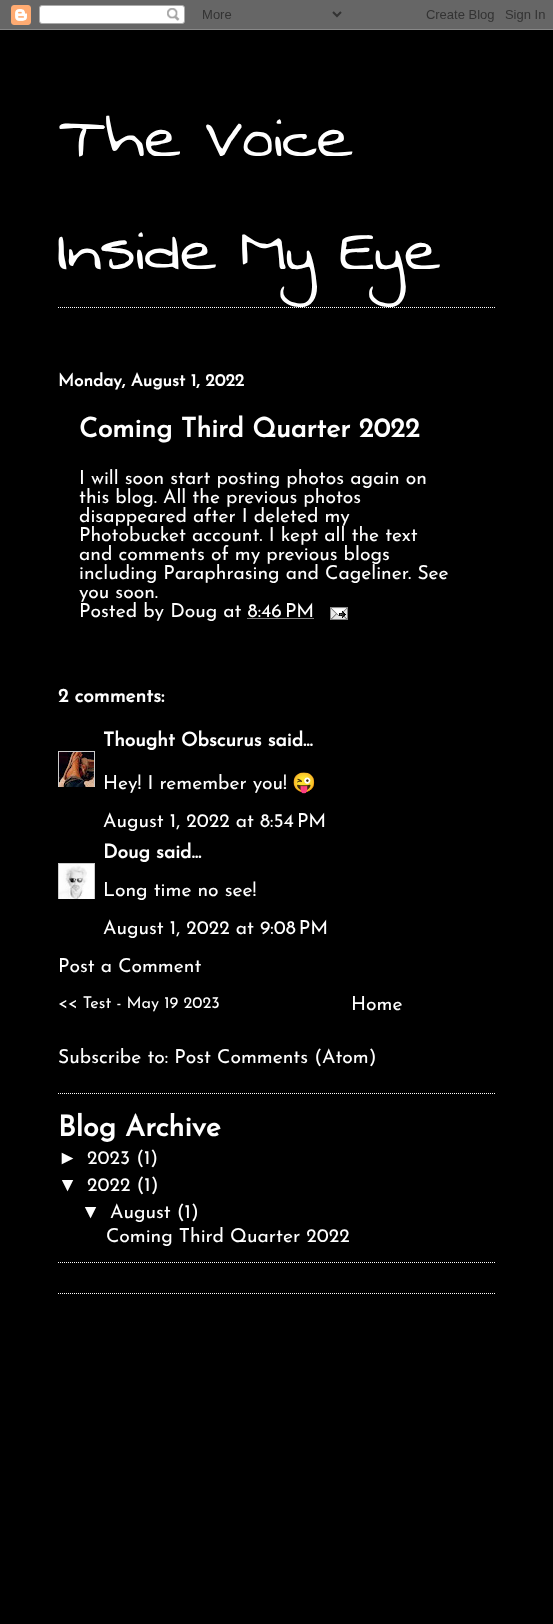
<svg xmlns="http://www.w3.org/2000/svg" width="553" height="1624" viewBox="0 0 553 1624">
  <style>
    .t1 { font: 77px Swanky and Moo Moo; fill: #fff; }
    .t2 { font: bold 17.25px Josefin Sans; fill: #fff; }
    .t3 { font: bold 26.9px Josefin Sans; fill: #fff; }
    .t4 { font: 100 19.25px Josefin Sans; fill: #fff; }
    .t5 { font: bold 19.25px Josefin Sans; fill: #fff; }
    .t6 { font: 19.25px Noto Color Emoji; fill: #fff; }
    .t7 { font: 100 16.25px Josefin Sans; fill: #fff; }
    .t8 { font: bold 28.75px Josefin Sans; fill: #fff; }
    .t9 { font: 19.25px Liberation Sans; fill: #fff; }
  </style>
  <defs>
    <clipPath id="clip1"><rect x="58" y="751" width="37" height="36"/></clipPath>
    <clipPath id="clip2"><rect x="58" y="863" width="37" height="36"/></clipPath>
  </defs>
  <rect width="100%" height="100%" fill="#000"/>
  <image x="0" y="0" width="553" height="30" href="images/1.png"/>
  <path d="M58 307.5H495" fill="none" stroke="#fff" stroke-dasharray="1 1"/>
  <text x="58" y="156" class="t1">The Voice</text>
  <text x="58" y="269" class="t1">Inside My Eye</text>
  <path d="M58 1093.5H495" fill="none" stroke="#fff" stroke-dasharray="1 1"/>
  <text x="58" y="386" class="t2">Monday, August 1, 2022</text>
  <text x="79" y="437" class="t3">Coming Third Quarter 2022</text>
  <text x="79" y="484" class="t4">I will soon start posting photos again on</text>
  <text x="79" y="503" class="t4">this blog. All the previous photos</text>
  <text x="79" y="522" class="t4">disappeared after I deleted my</text>
  <text x="79" y="541" class="t4">Photobucket account. I kept all the text</text>
  <text x="79" y="560" class="t4">and comments of my previous blogs</text>
  <text x="79" y="579" class="t4">including Paraphrasing and Cageliner. See</text>
  <text x="79" y="598" class="t4">you soon.</text>
  <text x="79" y="617" class="t4">Posted by Doug at 8:46 PM</text>
  <image x="330" y="607" width="18" height="13" href="images/2.png"/>
  <path d="M247.5 618.5H314" fill="none" stroke="#fff" stroke-dasharray="1 1"/>
  <text x="58" y="702" class="t5">2 comments:</text>
  <text x="103" y="746" class="t5">Thought Obscurus said...</text>
  <g clip-path="url(#clip1)">
    <rect x="58.5" y="751.5" width="36" height="36" fill="none" stroke="#ccc"/>
  </g>
  <image x="59" y="752" width="35" height="35" href="images/3.png"/>
  <text x="103" y="789" class="t4">Hey! I remember you!</text>
  <text x="292" y="789" class="t6">😜</text>
  <text x="103" y="827" class="t4">August 1, 2022 at 8:54 PM</text>
  <text x="103" y="858" class="t5">Doug said...</text>
  <g clip-path="url(#clip2)">
    <rect x="58.5" y="863.5" width="36" height="36" fill="none" stroke="#ccc"/>
  </g>
  <image x="59" y="864" width="35" height="35" href="images/4.png"/>
  <text x="103" y="896" class="t4">Long time no see!</text>
  <text x="103" y="934" class="t4">August 1, 2022 at 9:08 PM</text>
  <text x="58" y="972" class="t4">Post a Comment</text>
  <text x="58" y="1008" class="t7">&lt;&lt; Test - May 19 2023</text>
  <text x="351" y="1010" class="t4">Home</text>
  <text x="58" y="1063" class="t4">Subscribe to: Post Comments (Atom)</text>
  <path d="M58 1262.5H495" fill="none" stroke="#fff" stroke-dasharray="1 1"/>
  <text x="58" y="1136" class="t8">Blog Archive</text>
  <text x="58" y="1164" class="t9">►</text>
  <text x="87" y="1164" class="t4">2023 (1)</text>
  <text x="58" y="1191" class="t9">▼</text>
  <text x="87" y="1191" class="t4">2022 (1)</text>
  <text x="81" y="1218" class="t9">▼</text>
  <text x="110" y="1218" class="t4">August (1)</text>
  <text x="106" y="1242" class="t4">Coming Third Quarter 2022</text>
  <path d="M58 1293.5H495" fill="none" stroke="#fff" stroke-dasharray="1 1"/>
</svg>
